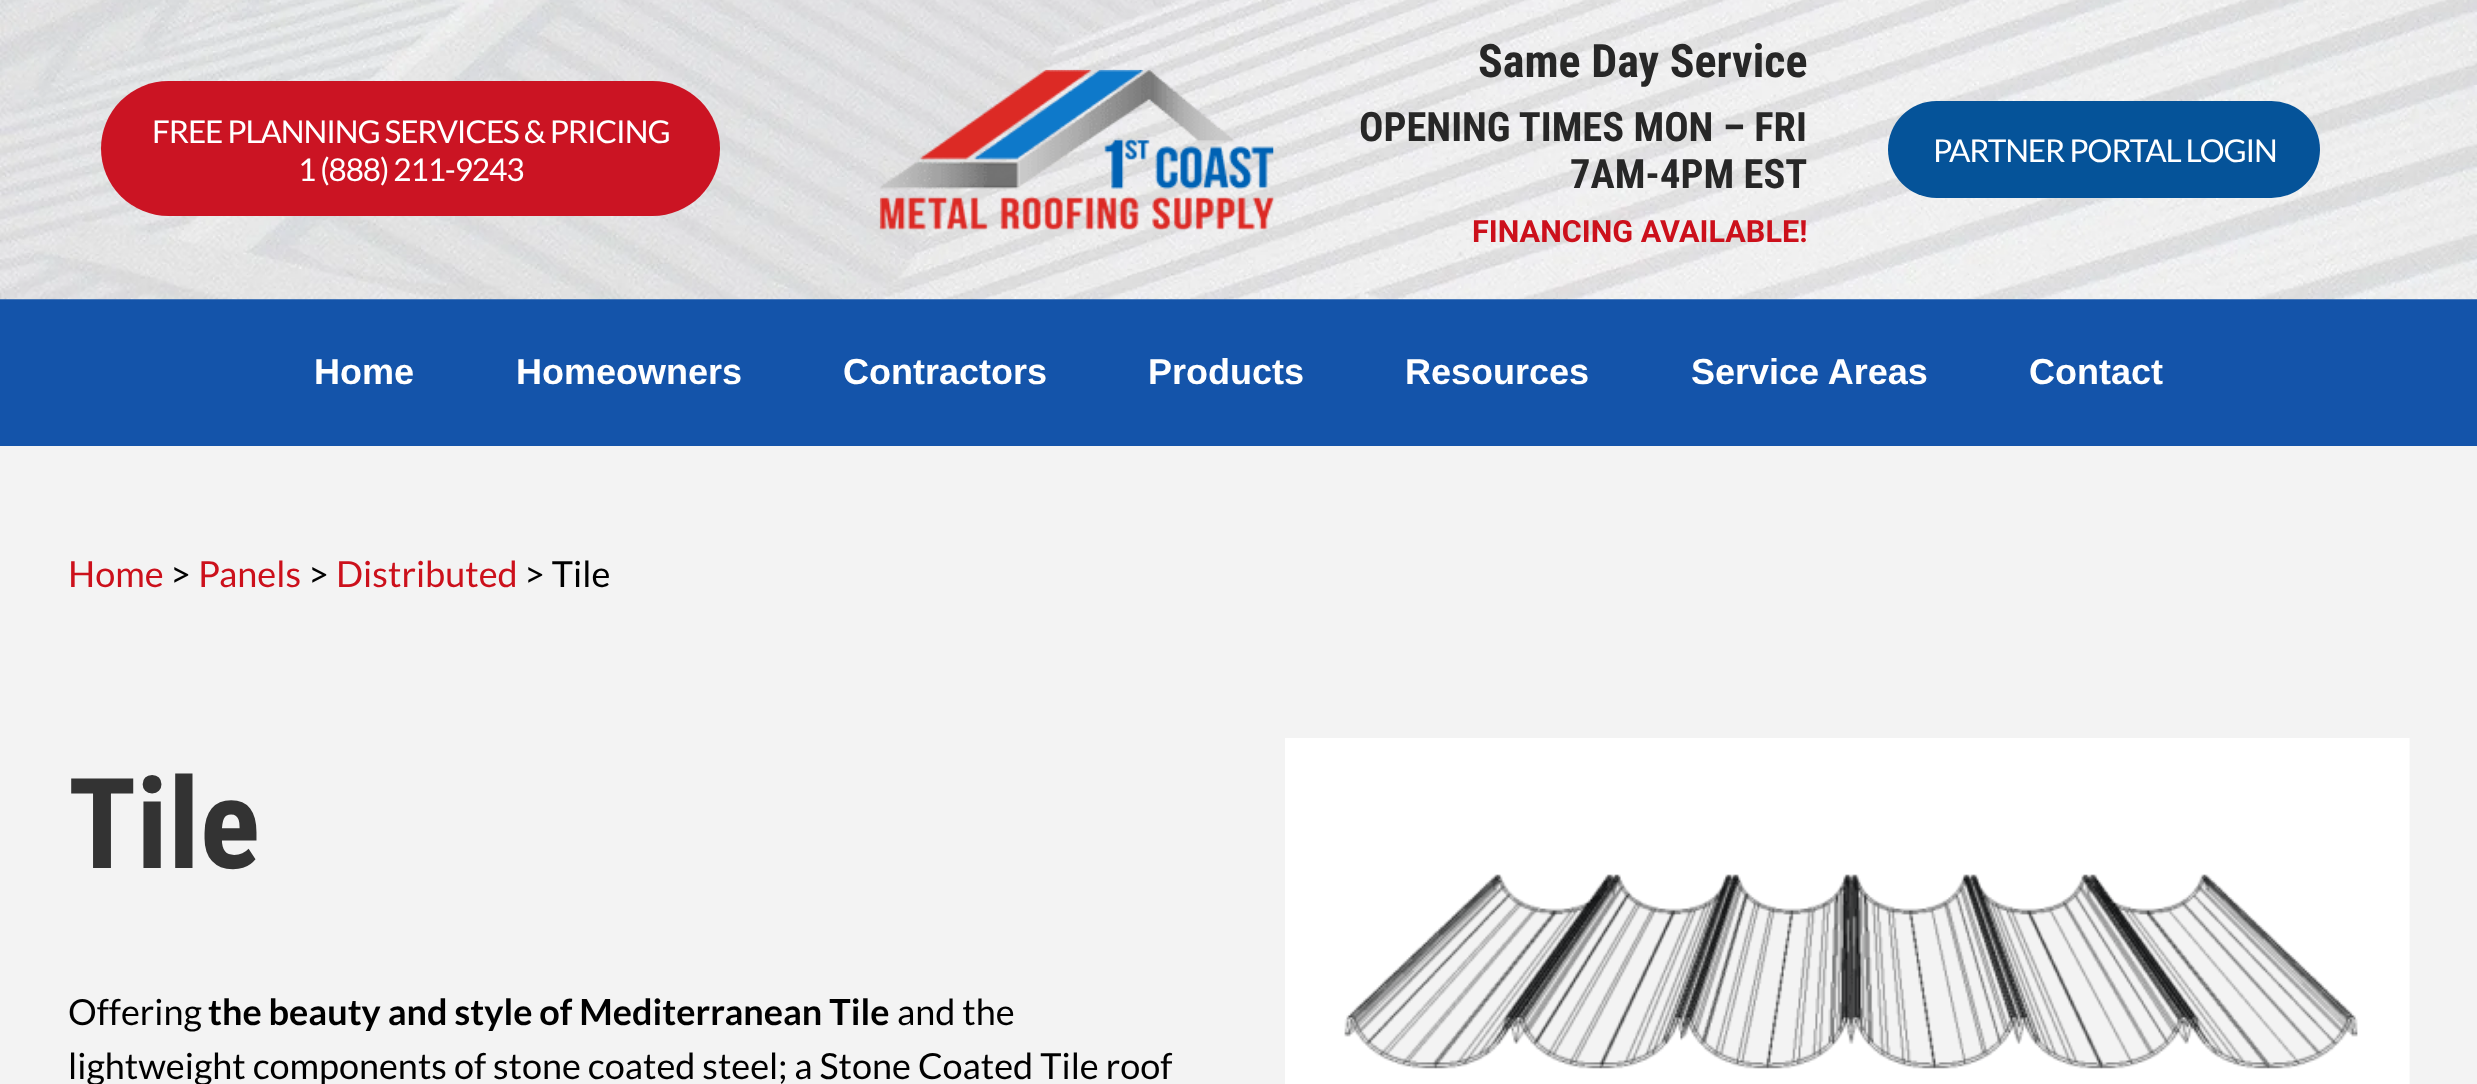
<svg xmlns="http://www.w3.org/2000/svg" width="2477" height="1084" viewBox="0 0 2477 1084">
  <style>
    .t1 { font: 31.5px Lato; letter-spacing: -1.1px; fill: #fff; }
    .t2 { font: bold 46px Roboto Condensed; fill: #272727; }
    .t3 { font: bold 40.5px Roboto Condensed; fill: #272727; }
    .t4 { font: bold 30.6px Roboto; fill: #cc101b; }
    .t5 { font: bold 36px Liberation Sans; fill: #fff; }
    .t6 { font: 36px Lato; fill: #cc101b; }
    .t7 { font: 36px Lato; fill: #000; }
    .t8 { font: bold 126px Roboto Condensed; fill: #333; }
    .t9 { font: bold 36px Lato; fill: #000; }
  </style>
  <rect width="100%" height="100%" fill="#f3f3f3"/>
  <rect x="0" y="299" width="2477" height="147" fill="#1454aa"/>
  <image x="0" y="0" width="2477" height="300" href="images/1.png"/>
  <rect x="101" y="81" width="619" height="135" rx="67.5" fill="#cb1423"/>
  <text x="152" y="143" class="t1">FREE PLANNING SERVICES &amp; PRICING</text>
  <text x="298" y="181" class="t1">1 (888) 211-9243</text>
  <image x="879" y="69" width="395" height="161" href="images/2.png"/>
  <text x="1478" y="77" class="t2">Same Day Service</text>
  <text x="1359" y="141" class="t3">OPENING TIMES MON – FRI</text>
  <text x="1570" y="188" class="t3">7AM-4PM EST</text>
  <text x="1472" y="242" class="t4">FINANCING AVAILABLE!</text>
  <rect x="1888" y="101" width="432" height="97" rx="48.5" fill="#055399"/>
  <text x="1933" y="162" class="t1">PARTNER PORTAL LOGIN</text>
  <text x="314" y="384" class="t5">Home</text>
  <text x="516" y="384" class="t5">Homeowners</text>
  <text x="843" y="384" class="t5">Contractors</text>
  <text x="1148" y="384" class="t5">Products</text>
  <text x="1405" y="384" class="t5">Resources</text>
  <text x="1691" y="384" class="t5">Service Areas</text>
  <text x="2029" y="384" class="t5">Contact</text>
  <text x="68" y="587" class="t6">Home</text>
  <text x="170" y="587" class="t7">&gt;</text>
  <text x="198" y="587" class="t6">Panels</text>
  <text x="308" y="587" class="t7">&gt;</text>
  <text x="336" y="587" class="t6">Distributed</text>
  <text x="524" y="587" class="t7">&gt; Tile</text>
  <text x="68" y="868" class="t8">Tile</text>
  <text x="68" y="1025" class="t7">Offering</text>
  <text x="208" y="1025" class="t9">the beauty and style of Mediterranean Tile</text>
  <text x="897" y="1025" class="t7">and the</text>
  <text x="68" y="1079" class="t7">lightweight components of stone coated steel; a Stone Coated Tile roof</text>
  <image x="1285" y="738" width="1125" height="346" href="images/3.png"/>
</svg>
